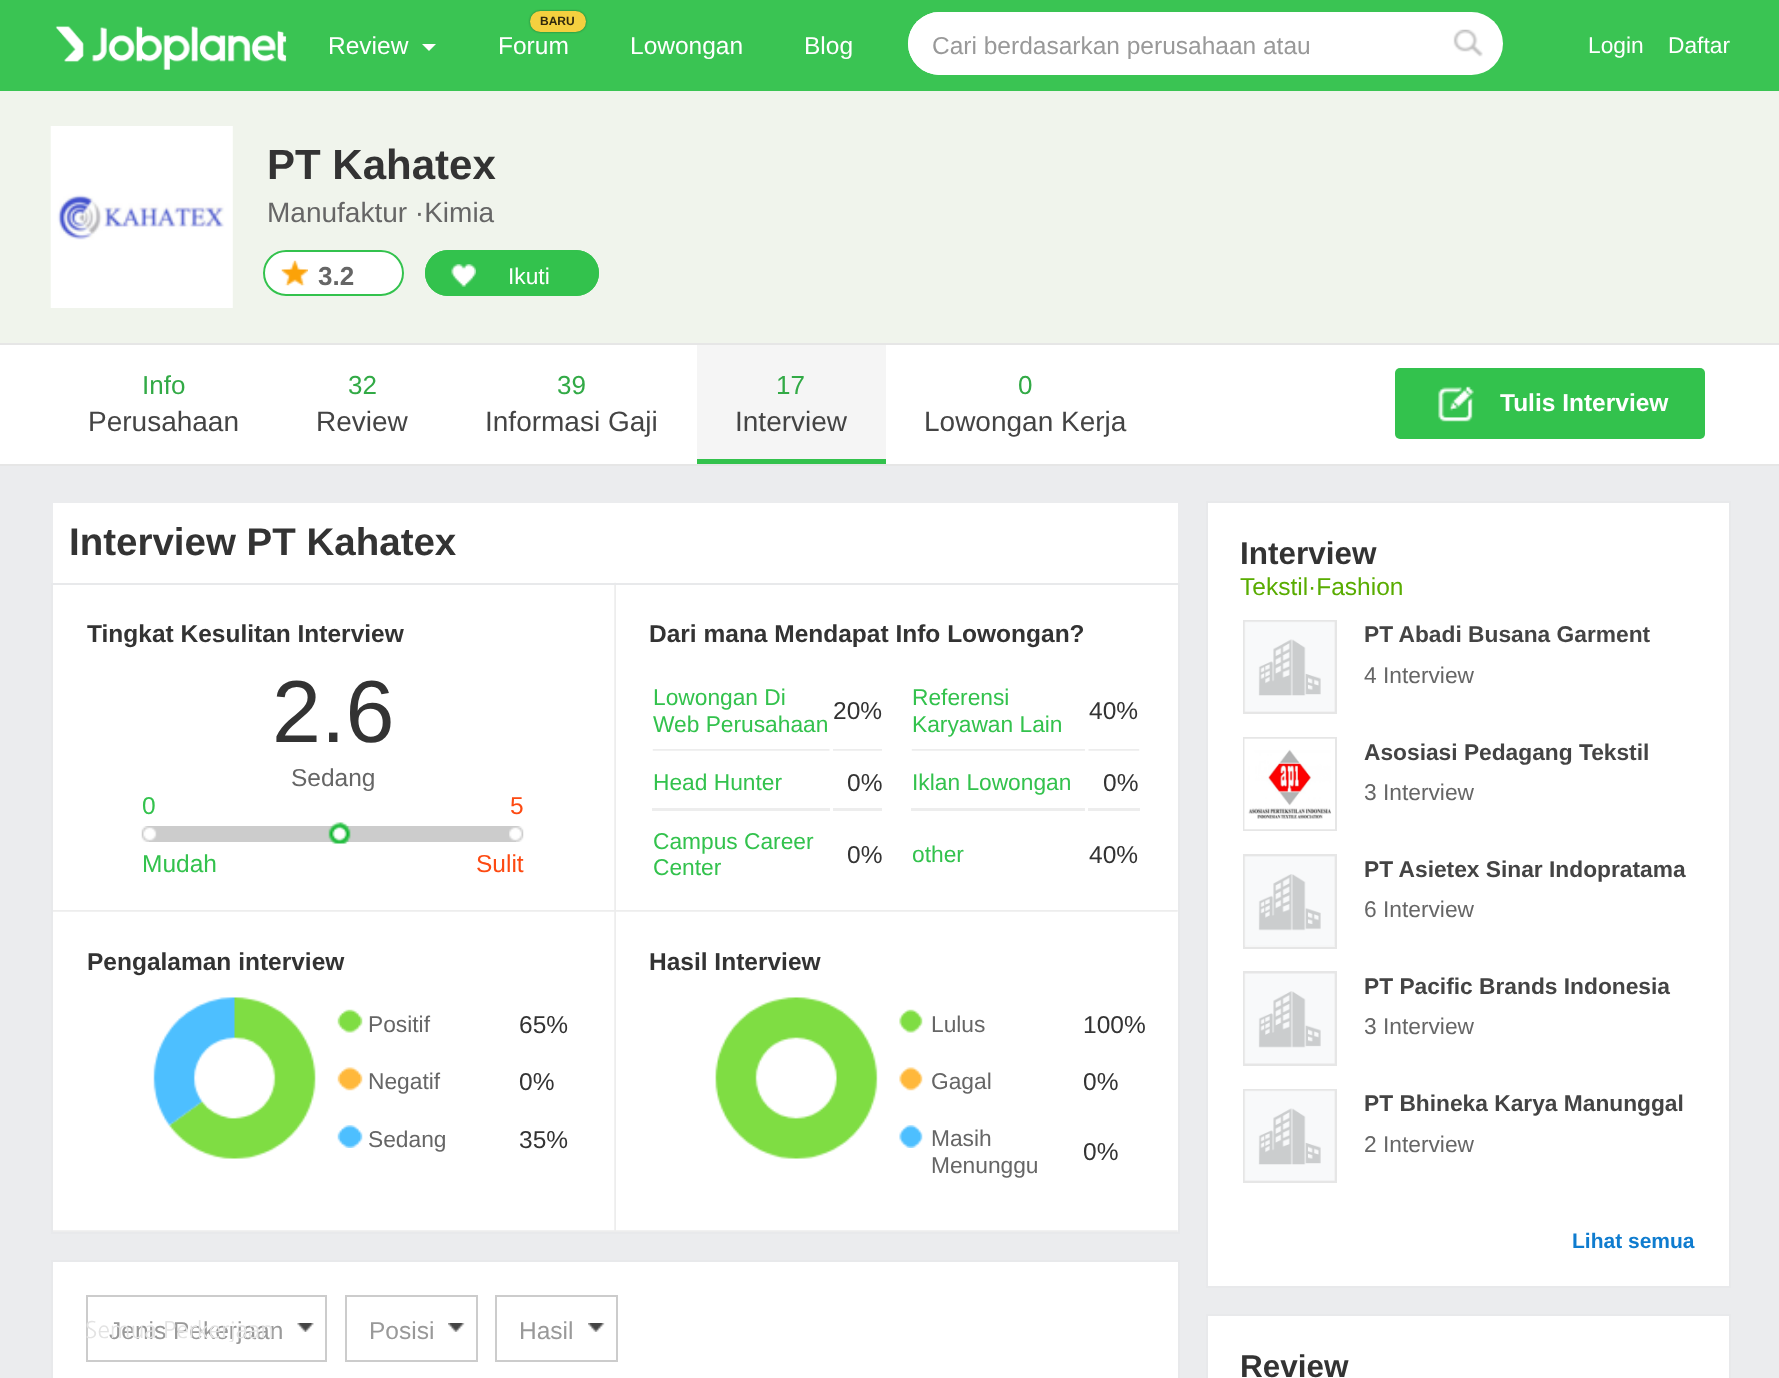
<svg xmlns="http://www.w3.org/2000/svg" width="1779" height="1378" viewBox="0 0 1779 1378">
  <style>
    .t1 { font: 24.5px Liberation Sans; fill: #fff; }
    .t2 { font: bold 12px Liberation Sans; fill: #312a0d; }
    .t3 { font: 24.5px Liberation Sans; fill: #999; }
    .t4 { font: 22.75px Liberation Sans; fill: #fff; }
    .t5 { font: bold 42px Liberation Sans; fill: #333; }
    .t6 { font: 28px Liberation Sans; fill: #666; }
    .t7 { font: bold 26px Liberation Sans; fill: #666; }
    .t8 { font: 26px Liberation Sans; fill: #32aa46; }
    .t9 { font: 28px Liberation Sans; fill: #444; }
    .t10 { font: bold 24.5px Liberation Sans; fill: #fff; }
    .t11 { font: bold 38.5px Liberation Sans; fill: #333; }
    .t12 { font: bold 24.5px Liberation Sans; fill: #333; }
    .t13 { font: 88px Liberation Sans; fill: #333; }
    .t14 { font: 24.5px Liberation Sans; fill: #666; }
    .t15 { font: 24.5px Liberation Sans; fill: #33c24d; }
    .t16 { font: 24.5px Liberation Sans; fill: #fd4a12; }
    .t17 { font: 22.75px Liberation Sans; fill: #33c24d; }
    .t18 { font: 24.5px Liberation Sans; fill: #333; }
    .t19 { font: 22.75px Liberation Sans; fill: #666; }
    .t20 { font: 22.75px NanumGothic; fill: #e3e3e3; }
    .t21 { font: bold 31.5px Liberation Sans; fill: #333; }
    .t22 { font: 24.5px Liberation Sans; fill: #59ac00; }
    .t23 { font: bold 22.75px Liberation Sans; fill: #444; }
    .t24 { font: bold 21px Liberation Sans; fill: #0f7ccf; }
  </style>
  <defs>
    <clipPath id="clip1"><rect x="86" y="1320" width="241" height="22"/></clipPath>
  </defs>
  <rect width="100%" height="100%" fill="#ebecee"/>
  <rect x="0" y="0" width="1779" height="91" fill="#3ac453"/>
  <image x="55" y="26" width="232" height="44" href="images/1.png"/>
  <text x="328" y="54" class="t1">Review</text>
  <path d="M422 44H436L429 51Z" fill="#fff"/>
  <rect x="530" y="11" width="56" height="21" rx="10.5" fill="#00000066" filter="blur(1px)"/>
  <rect x="530" y="11" width="56" height="21" rx="10.5" fill="#f4d03f"/>
  <text x="540" y="25" class="t2">BARU</text>
  <text x="498" y="54" class="t1">Forum</text>
  <text x="630" y="54" class="t1">Lowongan</text>
  <text x="804" y="54" class="t1">Blog</text>
  <rect x="908" y="12" width="595" height="63" rx="31.5" fill="#fff"/>
  <rect x="908" y="12" width="525" height="63" rx="31.5" fill="#fff"/>
  <text x="932" y="54" class="t3">Cari berdasarkan perusahaan atau</text>
  <image x="1453" y="29" width="30" height="28" href="images/2.png"/>
  <text x="1588" y="53" class="t4">Login</text>
  <text x="1668" y="53" class="t4">Daftar</text>
  <rect x="0" y="91" width="1779" height="252" fill="#f0f4ec"/>
  <image x="50" y="126" width="183" height="182" href="images/3.png"/>
  <text x="267" y="179" class="t5">PT Kahatex</text>
  <text x="267" y="222" class="t6">Manufaktur ·Kimia</text>
  <rect x="263" y="250" width="141" height="46" rx="23" fill="#fff"/>
  <image x="281" y="260" width="27" height="26" href="images/4.png"/>
  <rect x="264" y="251" width="139" height="44" rx="22" fill="none" stroke="#33c24d" stroke-width="2"/>
  <text x="318" y="285" class="t7">3.2</text>
  <rect x="425" y="250" width="174" height="46" rx="23" fill="#33c24d"/>
  <image x="451" y="264" width="25" height="23" href="images/5.png"/>
  <rect x="426" y="251" width="172" height="44" rx="22" fill="none" stroke="#33c24d" stroke-width="2"/>
  <text x="508" y="284" class="t4">Ikuti</text>
  <rect x="0" y="345" width="1779" height="119" fill="#fff"/>
  <rect x="0" y="343" width="1779" height="2" fill="#e6e6e6"/>
  <rect x="0" y="464" width="1779" height="2" fill="#e6e6e6"/>
  <text x="142" y="394" class="t8">Info</text>
  <text x="88" y="431" class="t9">Perusahaan</text>
  <text x="348" y="394" class="t8">32</text>
  <text x="316" y="431" class="t9">Review</text>
  <text x="557" y="394" class="t8">39</text>
  <text x="485" y="431" class="t9">Informasi Gaji</text>
  <rect x="697" y="345" width="189" height="114" fill="#f5f5f5"/>
  <text x="776" y="394" class="t8">17</text>
  <text x="735" y="431" class="t9">Interview</text>
  <rect x="697" y="459" width="189" height="5" fill="#33c24d"/>
  <text x="1018" y="394" class="t8">0</text>
  <text x="924" y="431" class="t9">Lowongan Kerja</text>
  <rect x="1395" y="368" width="310" height="71" rx="5" fill="#33c24d"/>
  <image x="1438" y="386" width="36" height="36" href="images/6.png"/>
  <text x="1500" y="411" class="t10">Tulis Interview</text>
  <rect x="53" y="503" width="1125" height="729" fill="#fff"/>
  <text x="69" y="555" class="t11">Interview PT Kahatex</text>
  <image x="614" y="582" width="2" height="649" href="images/7.png"/>
  <rect x="52" y="584" width="1127" height="649" fill="none" stroke="#e8e9eb" stroke-width="2"/>
  <image x="53" y="910" width="1125" height="2" href="images/8.png"/>
  <text x="87" y="642" class="t12">Tingkat Kesulitan Interview</text>
  <text x="272" y="742" class="t13">2.6</text>
  <text x="291" y="786" class="t14">Sedang</text>
  <text x="142" y="814" class="t15">0</text>
  <text x="510" y="814" class="t16">5</text>
  <rect x="149" y="826" width="367" height="16" fill="#ccc"/>
  <image x="141" y="826" width="16" height="16" href="images/9.png"/>
  <image x="328" y="822" width="23" height="22" href="images/10.png"/>
  <image x="509" y="826" width="15" height="16" href="images/11.png"/>
  <text x="142" y="872" class="t15">Mudah</text>
  <text x="476" y="872" class="t16">Sulit</text>
  <text x="649" y="642" class="t12">Dari mana Mendapat Info Lowongan?</text>
  <text x="653" y="705" class="t17">Lowongan Di</text>
  <text x="653" y="732" class="t17">Web Perusahaan</text>
  <text x="833" y="719" class="t18">20%</text>
  <text x="912" y="705" class="t17">Referensi</text>
  <text x="912" y="732" class="t17">Karyawan Lain</text>
  <text x="1089" y="719" class="t18">40%</text>
  <image x="652" y="749" width="178" height="2" href="images/12.png"/>
  <text x="653" y="790" class="t17">Head Hunter</text>
  <image x="833" y="749" width="49" height="2" href="images/13.png"/>
  <text x="847" y="791" class="t18">0%</text>
  <image x="911" y="749" width="174" height="2" href="images/14.png"/>
  <text x="912" y="790" class="t17">Iklan Lowongan</text>
  <image x="1088" y="749" width="52" height="2" href="images/15.png"/>
  <text x="1103" y="791" class="t18">0%</text>
  <rect x="652" y="808" width="178" height="3" fill="#ededed"/>
  <text x="653" y="849" class="t17">Campus Career</text>
  <text x="653" y="875" class="t17">Center</text>
  <rect x="833" y="808" width="49" height="3" fill="#ededed"/>
  <text x="847" y="863" class="t18">0%</text>
  <rect x="911" y="808" width="174" height="3" fill="#ededed"/>
  <text x="912" y="862" class="t17">other</text>
  <rect x="1088" y="808" width="52" height="3" fill="#ededed"/>
  <text x="1089" y="863" class="t18">40%</text>
  <image x="53" y="1230" width="1125" height="2" href="images/16.png"/>
  <text x="87" y="970" class="t12">Pengalaman interview</text>
  <image x="153" y="997" width="163" height="162" href="images/17.png"/>
  <image x="337" y="1009" width="26" height="24" href="images/18.png"/>
  <text x="368" y="1032" class="t19">Positif</text>
  <text x="519" y="1033" class="t18">65%</text>
  <image x="337" y="1067" width="26" height="24" href="images/19.png"/>
  <text x="368" y="1089" class="t19">Negatif</text>
  <text x="519" y="1090" class="t18">0%</text>
  <image x="337" y="1125" width="26" height="23" href="images/20.png"/>
  <text x="368" y="1147" class="t19">Sedang</text>
  <text x="519" y="1148" class="t18">35%</text>
  <text x="649" y="970" class="t12">Hasil Interview</text>
  <image x="715" y="997" width="163" height="162" href="images/21.png"/>
  <image x="899" y="1009" width="24" height="24" href="images/22.png"/>
  <text x="931" y="1032" class="t19">Lulus</text>
  <text x="1083" y="1033" class="t18">100%</text>
  <image x="899" y="1067" width="24" height="24" href="images/23.png"/>
  <text x="931" y="1089" class="t19">Gagal</text>
  <text x="1083" y="1090" class="t18">0%</text>
  <image x="899" y="1125" width="24" height="23" href="images/24.png"/>
  <text x="931" y="1146" class="t19">Masih</text>
  <text x="931" y="1173" class="t19">Menunggu</text>
  <text x="1083" y="1160" class="t18">0%</text>
  <rect x="53" y="1262" width="1125" height="116" fill="#fff"/>
  <rect x="51" y="1260" width="1129" height="2" fill="#e8e9eb"/>
  <rect x="1178" y="1260" width="2" height="118" fill="#e8e9eb"/>
  <rect x="51" y="1260" width="2" height="118" fill="#e8e9eb"/>
  <rect x="87" y="1296" width="239" height="65" fill="none" stroke="#ccc" stroke-width="2"/>
  <text x="109" y="1339" class="t3">Jenis Pekerjaan</text>
  <g clip-path="url(#clip1)">
    <text x="85" y="1338" class="t20">Semua Perkerjaan</text>
  </g>
  <image x="297" y="1323" width="17" height="9" href="images/25.png"/>
  <rect x="346" y="1296" width="131" height="65" fill="none" stroke="#ccc" stroke-width="2"/>
  <text x="369" y="1339" class="t3">Posisi</text>
  <image x="448" y="1323" width="17" height="9" href="images/26.png"/>
  <rect x="496" y="1296" width="121" height="65" fill="none" stroke="#ccc" stroke-width="2"/>
  <text x="519" y="1339" class="t3">Hasil</text>
  <image x="588" y="1323" width="17" height="9" href="images/27.png"/>
  <rect x="1207" y="502" width="523" height="785" fill="#fff" stroke="#e8e9eb" stroke-width="2"/>
  <text x="1240" y="564" class="t21">Interview</text>
  <text x="1240" y="595" class="t22">Tekstil·Fashion</text>
  <rect x="1244" y="621" width="92" height="92" fill="none" stroke="#e6e6e6" stroke-width="2"/>
  <image x="1244" y="621" width="91" height="91" href="images/28.png"/>
  <text x="1364" y="642" class="t23">PT Abadi Busana Garment</text>
  <text x="1364" y="683" class="t19">4 Interview</text>
  <rect x="1244" y="738" width="92" height="92" fill="none" stroke="#e6e6e6" stroke-width="2"/>
  <image x="1244" y="738" width="91" height="92" href="images/29.png"/>
  <text x="1364" y="760" class="t23">Asosiasi Pedagang Tekstil</text>
  <text x="1364" y="800" class="t19">3 Interview</text>
  <rect x="1244" y="855" width="92" height="93" fill="none" stroke="#e6e6e6" stroke-width="2"/>
  <image x="1244" y="856" width="91" height="91" href="images/30.png"/>
  <text x="1364" y="877" class="t23">PT Asietex Sinar Indopratama</text>
  <text x="1364" y="917" class="t19">6 Interview</text>
  <rect x="1244" y="972" width="92" height="93" fill="none" stroke="#e6e6e6" stroke-width="2"/>
  <image x="1244" y="973" width="91" height="91" href="images/31.png"/>
  <text x="1364" y="994" class="t23">PT Pacific Brands Indonesia</text>
  <text x="1364" y="1034" class="t19">3 Interview</text>
  <rect x="1244" y="1090" width="92" height="92" fill="none" stroke="#e6e6e6" stroke-width="2"/>
  <image x="1244" y="1090" width="91" height="91" href="images/28.png"/>
  <text x="1364" y="1111" class="t23">PT Bhineka Karya Manunggal</text>
  <text x="1364" y="1152" class="t19">2 Interview</text>
  <text x="1572" y="1248" class="t24">Lihat semua</text>
  <rect x="1207" y="1315" width="523" height="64" fill="#fff" stroke="#e8e9eb" stroke-width="2"/>
  <text x="1240" y="1377" class="t21">Review</text>
</svg>
